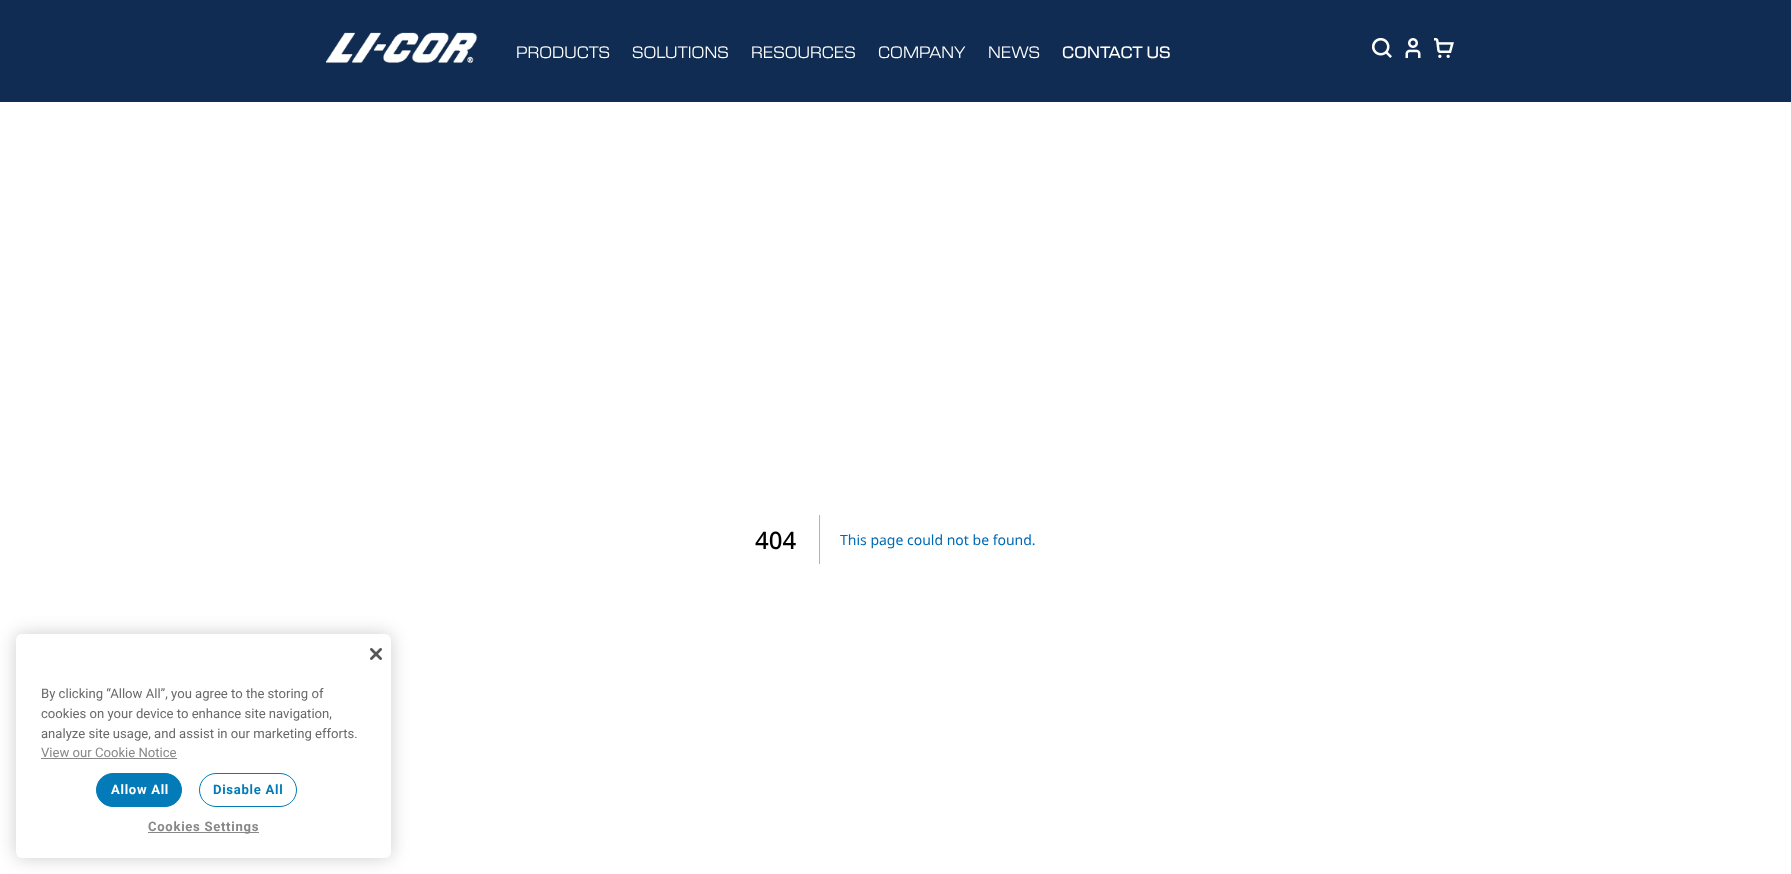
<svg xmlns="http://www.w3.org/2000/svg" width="1791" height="874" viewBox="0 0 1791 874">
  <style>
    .t1 { font: 16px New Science; fill: #fff; }
    .t2 { font: 500 16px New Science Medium; fill: #fff; }
    .t3 { font: 500 24px Noto Sans; fill: #000; }
    .t4 { font: 14px Noto Sans; fill: #0069b4; }
    .t5 { font: 13.1px Roboto; fill: #696969; }
    .t6 { font: 13.1px Roboto; fill: #888; }
    .t7 { font: bold 13.1px Roboto; letter-spacing: 0.7px; fill: #fff; }
    .t8 { font: bold 13.1px Roboto; letter-spacing: 0.7px; fill: #027bb8; }
    .t9 { font: bold 13.1px Roboto; letter-spacing: 0.7px; fill: #888; }
  </style>
  <rect width="100%" height="100%" fill="#fff"/>
  <rect x="0" y="0" width="1791" height="102" fill="#102c52"/>
  <image x="326" y="32" width="152" height="31" href="images/1.png"/>
  <text x="516" y="58" class="t1">PRODUCTS</text>
  <text x="632" y="58" class="t1">SOLUTIONS</text>
  <text x="751" y="58" class="t1">RESOURCES</text>
  <text x="878" y="58" class="t1">COMPANY</text>
  <text x="988" y="58" class="t1">NEWS</text>
  <text x="1062" y="58" class="t2">CONTACT US</text>
  <image x="1372" y="38" width="20" height="20" href="images/2.png"/>
  <image x="1405" y="38" width="16" height="20" href="images/3.png"/>
  <image x="1434" y="38" width="20" height="20" href="images/4.png"/>
  <rect x="819" y="515" width="1" height="49" fill="#b3b3b3"/>
  <text x="755" y="549" class="t3">404</text>
  <text x="840" y="545" class="t4">This page could not be found.</text>
  <rect x="16" y="634" width="375" height="224" rx="6" fill="#00000033" filter="blur(9px)"/>
  <rect x="16" y="634" width="375" height="224" rx="6" fill="#fff"/>
  <image x="370" y="648" width="12" height="12" href="images/5.png"/>
  <text x="41" y="698" class="t5">By clicking “Allow All”, you agree to the storing of</text>
  <text x="41" y="718" class="t5">cookies on your device to enhance site navigation,</text>
  <text x="41" y="738" class="t5">analyze site usage, and assist in our marketing efforts.</text>
  <text x="41" y="757" class="t6">View our Cookie Notice</text>
  <rect x="41" y="758" width="136" height="1" fill="#888"/>
  <rect x="96.5" y="773.5" width="85" height="33" rx="16.5" fill="#027bb8" stroke="#027bb8"/>
  <text x="111" y="794" class="t7">Allow All</text>
  <rect x="199.5" y="773.5" width="97" height="33" rx="16.5" fill="none" stroke="#027bb8"/>
  <text x="213" y="794" class="t8">Disable All</text>
  <rect x="148" y="832" width="111" height="1" fill="#888"/>
  <text x="148" y="831" class="t9">Cookies Settings</text>
</svg>
